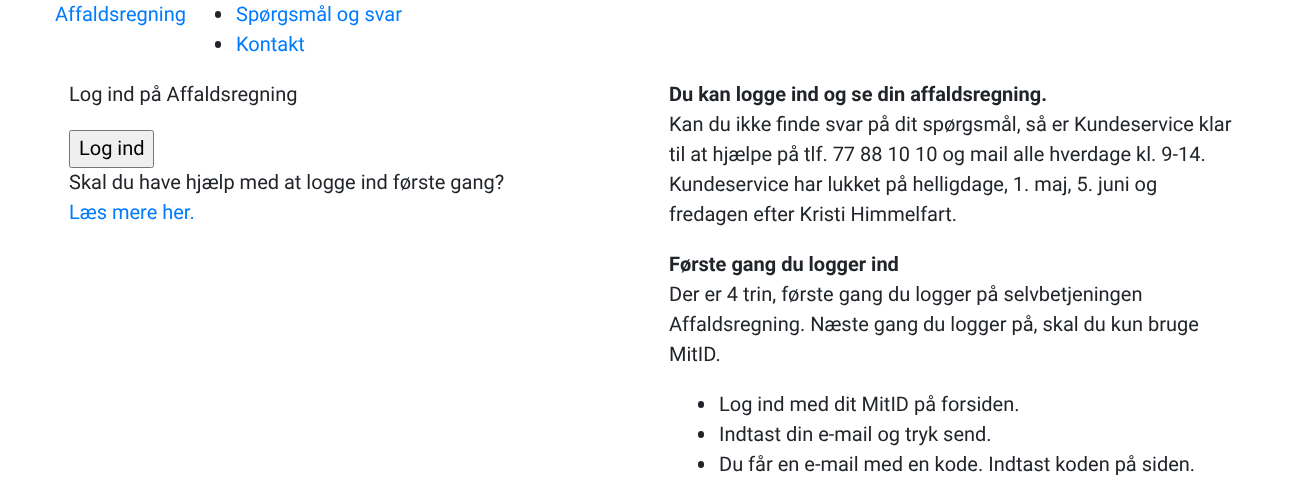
<svg xmlns="http://www.w3.org/2000/svg" width="1299" height="488" viewBox="0 0 1299 488">
  <style>
    .t1 { font: 20px Roboto; fill: #007bff; }
    .t2 { font: 20px Roboto; fill: #212529; }
    .t3 { font: 20px Roboto; fill: #000; }
    .t4 { font: bold 20px Roboto; fill: #212529; }
  </style>
  <rect width="100%" height="100%" fill="#fff"/>
  <text x="55" y="21" class="t1">Affaldsregning</text>
  <rect x="215" y="11" width="6" height="7" rx="3" fill="#212529"/>
  <text x="236" y="21" class="t1">Spørgsmål og svar</text>
  <rect x="215" y="41" width="6" height="7" rx="3" fill="#212529"/>
  <text x="236" y="51" class="t1">Kontakt</text>
  <text x="69" y="101" class="t2">Log ind på Affaldsregning</text>
  <rect x="69.5" y="130.5" width="84" height="37" rx="2" fill="#efefef" stroke="#767676"/>
  <text x="79" y="155" class="t3">Log ind</text>
  <text x="69" y="189" class="t2">Skal du have hjælp med at logge ind første gang?</text>
  <text x="69" y="219" class="t1">Læs mere her.</text>
  <text x="669" y="101" class="t4">Du kan logge ind og se din affaldsregning.</text>
  <text x="669" y="131" class="t2">Kan du ikke finde svar på dit spørgsmål, så er Kundeservice klar</text>
  <text x="669" y="161" class="t2">til at hjælpe på tlf. 77 88 10 10 og mail alle hverdage kl. 9-14.</text>
  <text x="669" y="191" class="t2">Kundeservice har lukket på helligdage, 1. maj, 5. juni og</text>
  <text x="669" y="221" class="t2">fredagen efter Kristi Himmelfart.</text>
  <text x="669" y="271" class="t4">Første gang du logger ind</text>
  <text x="669" y="301" class="t2">Der er 4 trin, første gang du logger på selvbetjeningen</text>
  <text x="669" y="331" class="t2">Affaldsregning. Næste gang du logger på, skal du kun bruge</text>
  <text x="669" y="361" class="t2">MitID.</text>
  <rect x="698" y="401" width="6" height="7" rx="3" fill="#212529"/>
  <text x="719" y="411" class="t2">Log ind med dit MitID på forsiden.</text>
  <rect x="698" y="431" width="6" height="7" rx="3" fill="#212529"/>
  <text x="719" y="441" class="t2">Indtast din e-mail og tryk send.</text>
  <rect x="698" y="461" width="6" height="7" rx="3" fill="#212529"/>
  <text x="719" y="471" class="t2">Du får en e-mail med en kode. Indtast koden på siden.</text>
</svg>
